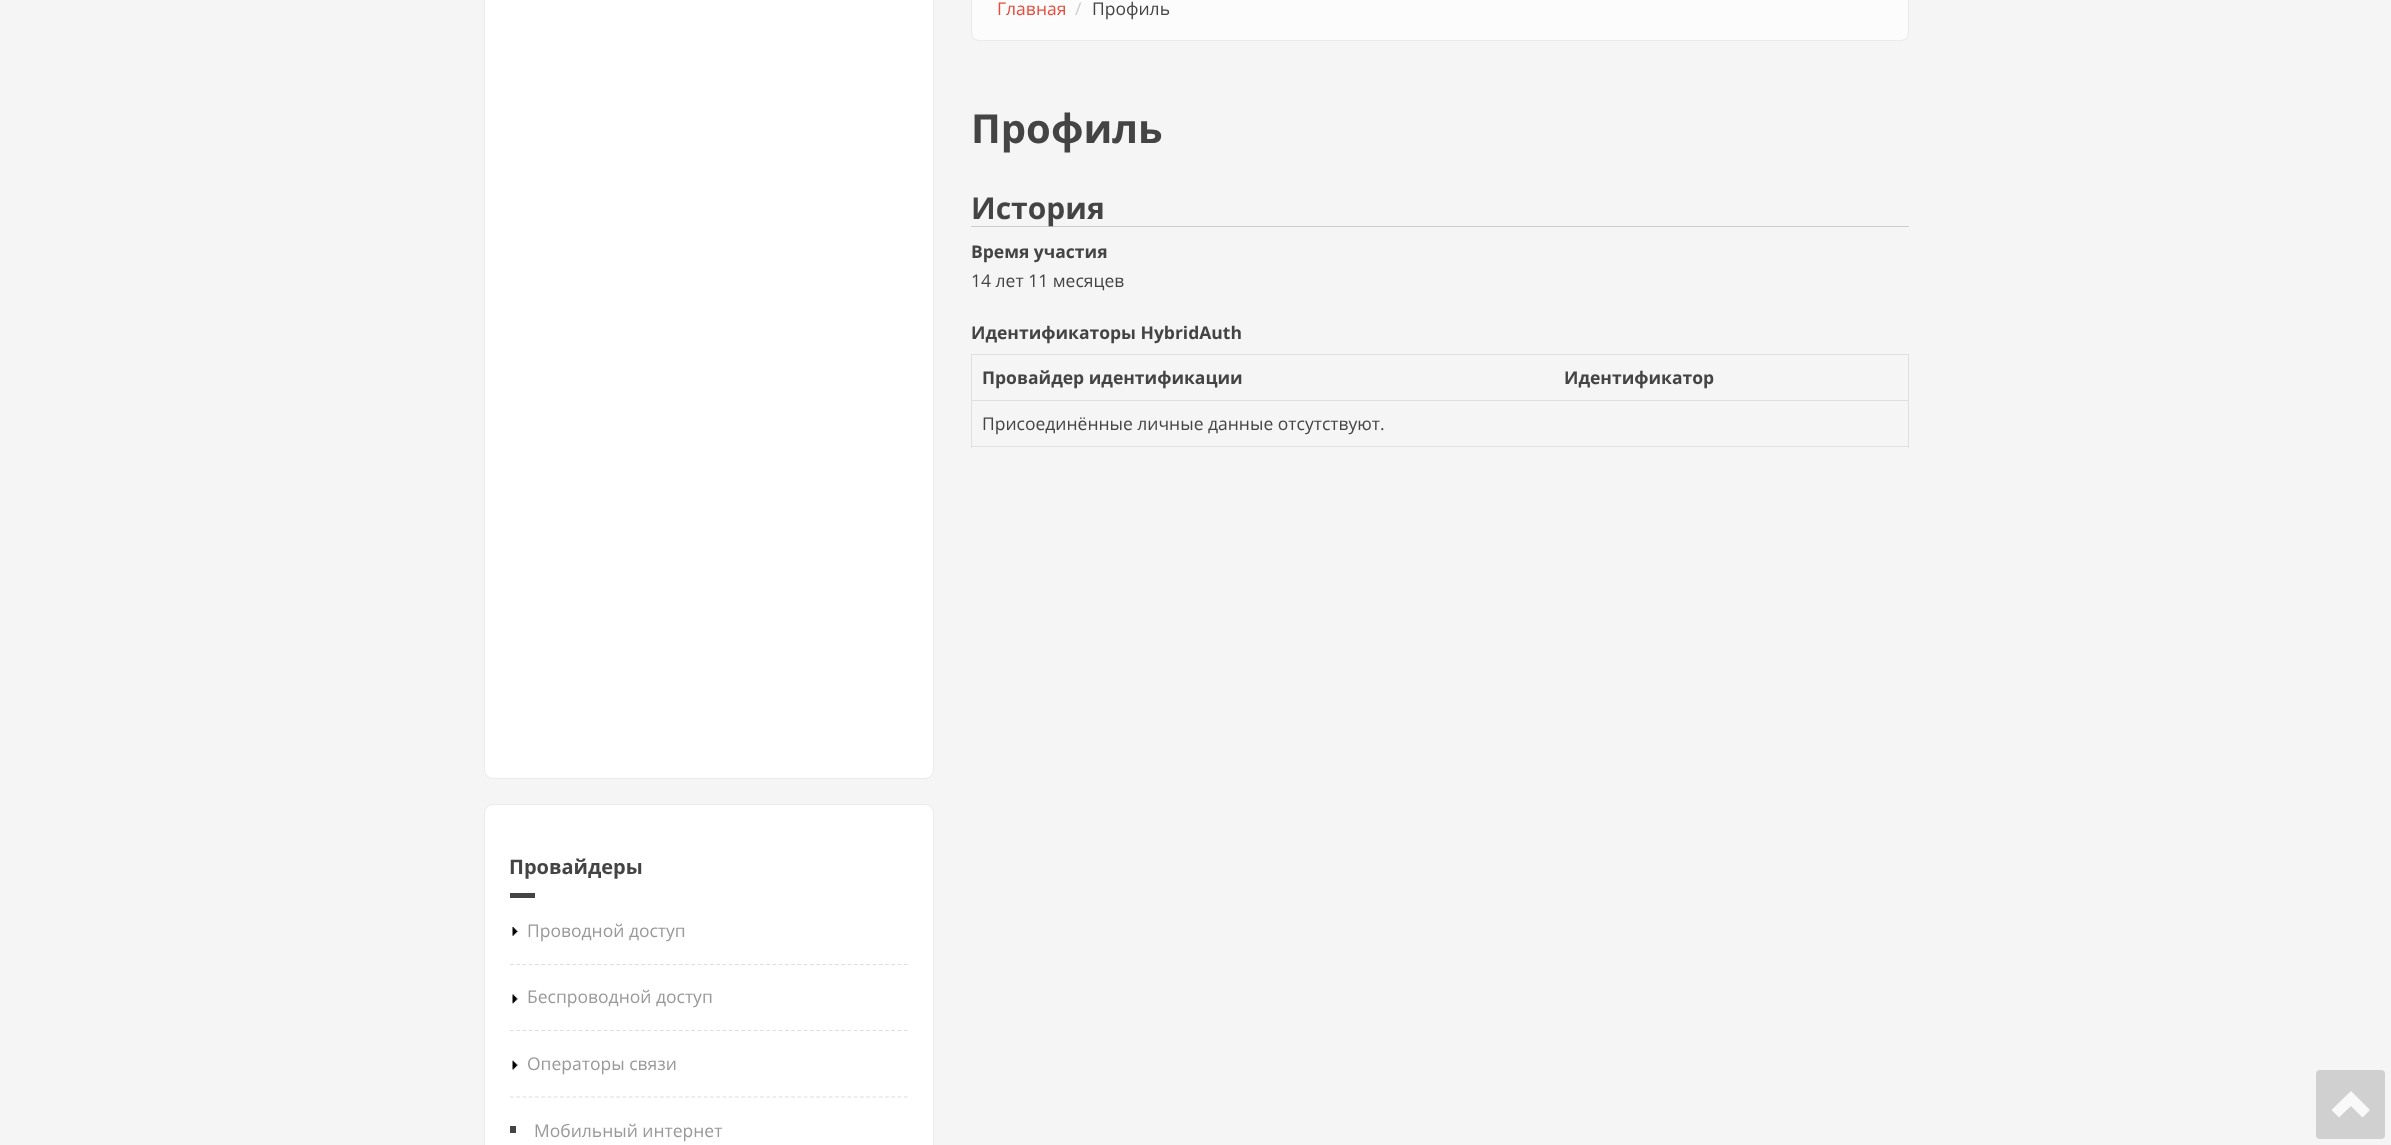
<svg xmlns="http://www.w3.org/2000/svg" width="2391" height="1145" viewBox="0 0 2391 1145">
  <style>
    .t1 { font: 17.5px Open Sans; fill: #e74c3c; }
    .t2 { font: 17.5px Open Sans; fill: #ccc; }
    .t3 { font: 17.5px Open Sans; fill: #444; }
    .t4 { font: bold 40px Open Sans; fill: #444; }
    .t5 { font: bold 30px Open Sans; fill: #444; }
    .t6 { font: bold 17.5px Open Sans; fill: #444; }
    .t7 { font: bold 20px Open Sans; fill: #444; }
    .t8 { font: 17.5px Open Sans; fill: #999; }
  </style>
  <rect width="100%" height="100%" fill="#f5f5f5"/>
  <rect x="971.5" y="-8.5" width="937" height="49" rx="7.5" fill="#fcfcfc" stroke="#eaeaea"/>
  <text x="997" y="15" class="t1">Главная</text>
  <text x="1075" y="15" class="t2">/</text>
  <text x="1092" y="15" class="t3">Профиль</text>
  <text x="971" y="143" class="t4">Профиль</text>
  <rect x="971" y="226" width="938" height="1" fill="#ccc"/>
  <text x="971" y="219" class="t5">История</text>
  <text x="971" y="258" class="t6">Время участия</text>
  <text x="971" y="287" class="t3">14 лет 11 месяцев</text>
  <text x="971" y="339" class="t6">Идентификаторы HybridAuth</text>
  <rect x="971" y="354" width="938" height="1" fill="#dfdfdf"/>
  <rect x="1908" y="354" width="1" height="94" fill="#dfdfdf"/>
  <rect x="971" y="446" width="938" height="1" fill="#dfdfdf"/>
  <rect x="971" y="354" width="1" height="94" fill="#dfdfdf"/>
  <text x="982" y="384" class="t6">Провайдер идентификации</text>
  <rect x="971" y="400" width="938" height="1" fill="#dfdfdf"/>
  <text x="1564" y="384" class="t6">Идентификатор</text>
  <text x="982" y="430" class="t3">Присоединённые личные данные отсутствуют.</text>
  <rect x="484.5" y="-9.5" width="449" height="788" rx="8.5" fill="#fff" stroke="#eaeaea"/>
  <rect x="484.5" y="804.5" width="449" height="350" rx="8.5" fill="#fff" stroke="#eaeaea"/>
  <text x="509" y="874" class="t7">Провайдеры</text>
  <rect x="510" y="893" width="25" height="5" fill="#444"/>
  <path d="M510 964.5H907.5" fill="none" stroke="#ddd" stroke-width="1.2" stroke-dasharray="3.75 2.5"/>
  <image x="512" y="927" width="6" height="9" href="images/1.png"/>
  <text x="527" y="937" class="t8">Проводной доступ</text>
  <path d="M510 1030.5H907.5" fill="none" stroke="#ddd" stroke-width="1.2" stroke-dasharray="3.75 2.5"/>
  <image x="512" y="994" width="6" height="10" href="images/2.png"/>
  <text x="527" y="1003" class="t8">Беспроводной доступ</text>
  <path d="M510 1097H907.5" fill="none" stroke="#ddd" stroke-width="1.2" stroke-dasharray="3.75 2.5"/>
  <image x="512" y="1060" width="6" height="10" href="images/3.png"/>
  <text x="527" y="1070" class="t8">Операторы связи</text>
  <rect x="510" y="1126" width="6" height="7" fill="#444"/>
  <text x="534" y="1137" class="t8">Мобильный интернет</text>
  <rect x="2316" y="1070" width="69" height="69" rx="4" fill="#d0d0d0"/>
  <path d="M2331.5 1110L2339 1117.5L2351 1106L2362.5 1117.5L2370 1110L2351 1091Z" fill="#f9f9f9"/>
</svg>
